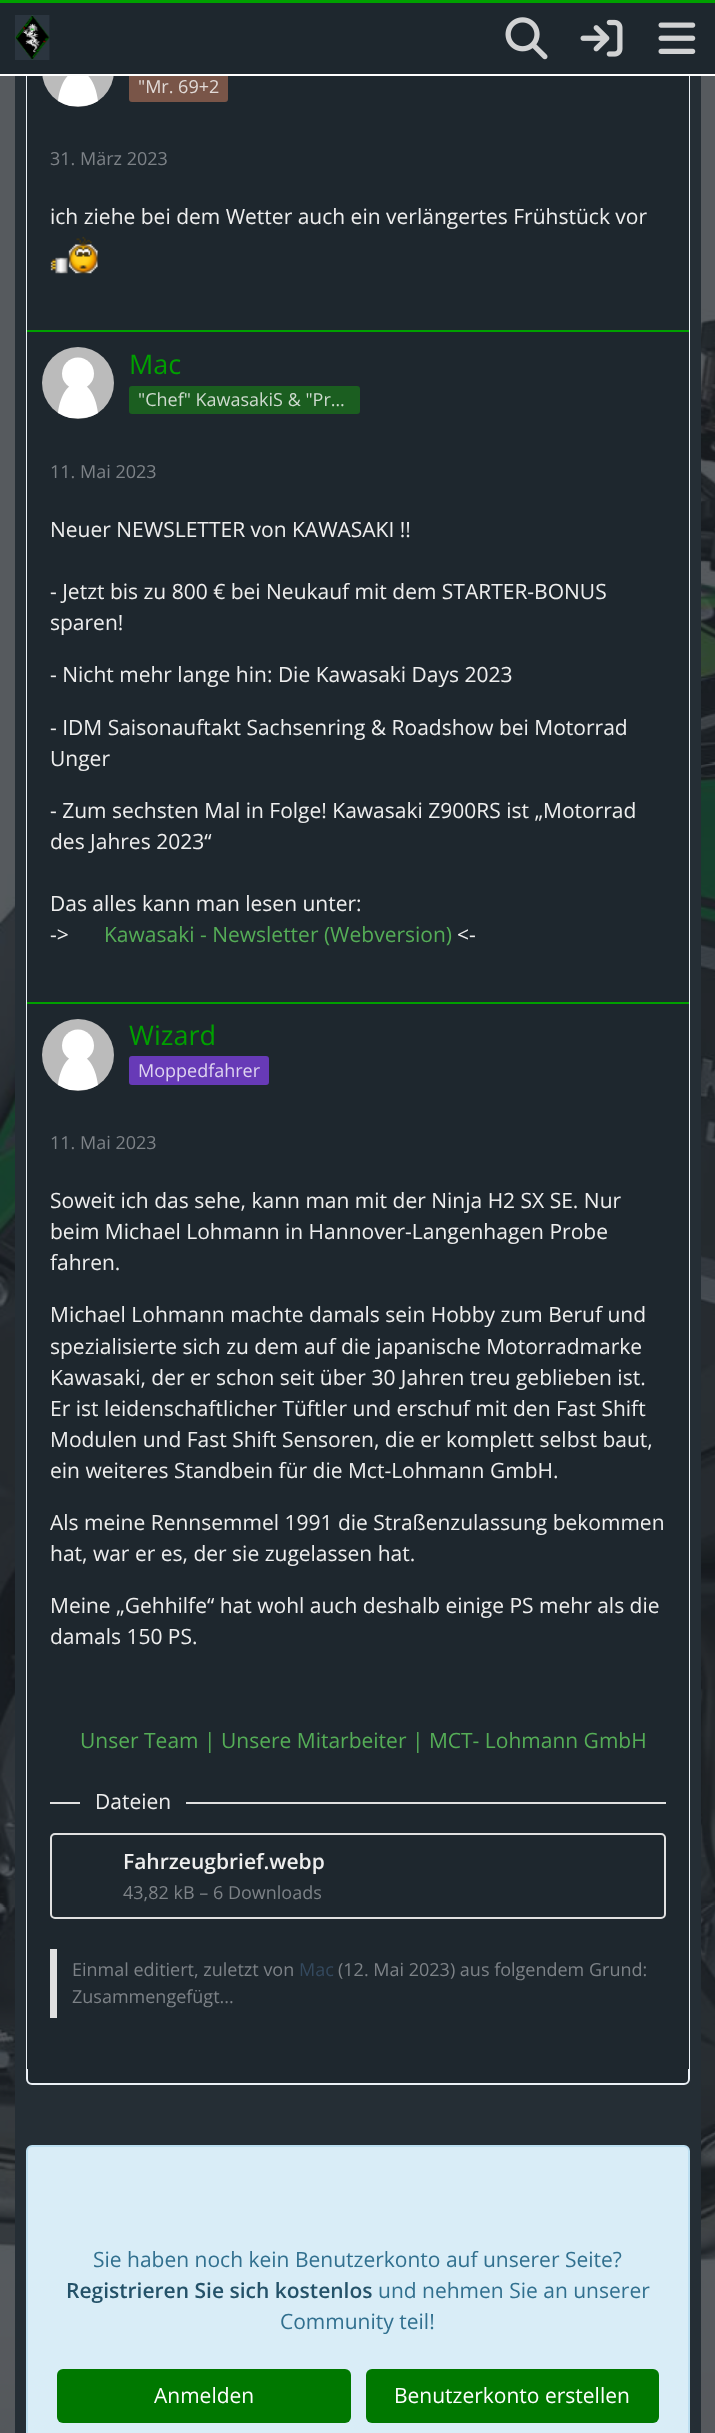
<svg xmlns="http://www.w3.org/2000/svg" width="715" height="2433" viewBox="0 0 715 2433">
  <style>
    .t1 { font: 18px Open Sans; fill: #e1dad7; }
    .t2 { font: 18px Open Sans; fill: #7d8287; }
    .t3 { font: 21px Open Sans; fill: #eee; }
    .t4 { font: 27px Open Sans; fill: #00a000; }
    .t5 { font: 18px Open Sans; fill: #cfdbcf; }
    .t6 { font: 21px Open Sans; fill: #55ad57; }
    .t7 { font: 18px Open Sans; fill: #ded4f0; }
    .t8 { font: 600 21px Open Sans; fill: #eee; }
    .t9 { font: 18px Open Sans; fill: #34495e; }
    .t10 { font: 21px Open Sans; fill: #31708f; }
    .t11 { font: 600 21px Open Sans; fill: #245269; }
    .t12 { font: 21px Open Sans; fill: #fff; }
  </style>
  <rect width="100%" height="100%" fill="#fff"/>
  <image x="0" y="76" width="715" height="2357" href="images/1.png"/>
  <rect x="15" y="76" width="686" height="2357" fill="#252e35"/>
  <rect x="27" y="-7" width="662" height="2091" rx="5" fill="#1e272e" stroke="#ecf1f7" stroke-width="2"/>
  <rect x="27" y="76" width="662" height="254" fill="#1e272e"/>
  <circle cx="78" cy="71" r="36" fill="#bbb"/>
  <path d="M70 106C66 105 62 103 58 101C63 61 93 61 98 101C88 107 81 106 70 106Z" fill="#fff"/>
  <circle cx="78" cy="61.5" r="16" fill="#fff"/>
  <rect x="129" y="72" width="99" height="30" rx="3" fill="#795548"/>
  <rect x="0" y="3" width="715" height="71" fill="#1e272e"/>
  <rect x="0" y="0" width="715" height="3" fill="#00a000"/>
  <rect x="26" y="74" width="664" height="2" fill="#fff"/>
  <image x="15" y="15" width="35" height="45" href="images/2.png"/>
  <image x="505" y="17" width="43" height="43" href="images/3.png"/>
  <image x="580" y="19" width="43" height="38" href="images/4.png"/>
  <image x="658" y="22" width="38" height="32" href="images/5.png"/>
  <text x="138" y="93" class="t1">"Mr. 69+2</text>
  <text x="50" y="165" class="t2">31. März 2023</text>
  <text x="50" y="224" class="t3">ich ziehe bei dem Wetter auch ein verlängertes Frühstück vor</text>
  <image x="50" y="236" width="48" height="38" href="images/6.png"/>
  <rect x="27" y="332" width="662" height="670" fill="#1e272e"/>
  <rect x="27" y="330" width="662" height="2" fill="#00a000"/>
  <circle cx="78" cy="383" r="36" fill="#bbb"/>
  <path d="M70 418C66 417 62 415 58 413C63 373 93 373 98 413C88 419 81 418 70 418Z" fill="#fff"/>
  <circle cx="78" cy="373.5" r="16" fill="#fff"/>
  <text x="129" y="374" class="t4">Mac</text>
  <rect x="129" y="386" width="231" height="28" rx="3" fill="#1b5e20"/>
  <text x="138" y="406" class="t5">"Chef" KawasakiS &amp; "Pr…</text>
  <text x="50" y="478" class="t2">11. Mai 2023</text>
  <text x="50" y="537" class="t3">Neuer NEWSLETTER von KAWASAKI !!</text>
  <text x="50" y="599" class="t3">- Jetzt bis zu 800 € bei Neukauf mit dem STARTER-BONUS</text>
  <text x="50" y="630" class="t3">sparen!</text>
  <text x="50" y="682" class="t3">- Nicht mehr lange hin: Die Kawasaki Days 2023</text>
  <text x="50" y="735" class="t3">- IDM Saisonauftakt Sachsenring &amp; Roadshow bei Motorrad</text>
  <text x="50" y="766" class="t3">Unger</text>
  <text x="50" y="818" class="t3">- Zum sechsten Mal in Folge! Kawasaki Z900RS ist „Motorrad</text>
  <text x="50" y="849" class="t3">des Jahres 2023“</text>
  <text x="50" y="911" class="t3">Das alles kann man lesen unter:</text>
  <text x="50" y="942" class="t3">-&gt;</text>
  <text x="104" y="942" class="t6">Kawasaki - Newsletter (Webversion)</text>
  <text x="457" y="942" class="t3">&lt;-</text>
  <rect x="27" y="1004" width="662" height="1065" fill="#1e272e"/>
  <rect x="27" y="1002" width="662" height="2" fill="#00a000"/>
  <circle cx="78" cy="1055" r="36" fill="#bbb"/>
  <path d="M70 1090C66 1089 62 1087 58 1085C63 1045 93 1045 98 1085C88 1091 81 1090 70 1090Z" fill="#fff"/>
  <circle cx="78" cy="1045.5" r="16" fill="#fff"/>
  <text x="129" y="1045" class="t4">Wizard</text>
  <rect x="129" y="1056" width="140" height="29" rx="3" fill="#673ab7"/>
  <text x="138" y="1077" class="t7">Moppedfahrer</text>
  <text x="50" y="1149" class="t2">11. Mai 2023</text>
  <text x="50" y="1208" class="t3">Soweit ich das sehe, kann man mit der Ninja H2 SX SE. Nur</text>
  <text x="50" y="1239" class="t3">beim Michael Lohmann in Hannover-Langenhagen Probe</text>
  <text x="50" y="1270" class="t3">fahren.</text>
  <text x="50" y="1322" class="t3">Michael Lohmann machte damals sein Hobby zum Beruf und</text>
  <text x="50" y="1354" class="t3">spezialisierte sich zu dem auf die japanische Motorradmarke</text>
  <text x="50" y="1385" class="t3">Kawasaki, der er schon seit über 30 Jahren treu geblieben ist.</text>
  <text x="50" y="1416" class="t3">Er ist leidenschaftlicher Tüftler und erschuf mit den Fast Shift</text>
  <text x="50" y="1447" class="t3">Modulen und Fast Shift Sensoren, die er komplett selbst baut,</text>
  <text x="50" y="1478" class="t3">ein weiteres Standbein für die Mct-Lohmann GmbH.</text>
  <text x="50" y="1530" class="t3">Als meine Rennsemmel 1991 die Straßenzulassung bekommen</text>
  <text x="50" y="1561" class="t3">hat, war er es, der sie zugelassen hat.</text>
  <text x="50" y="1613" class="t3">Meine „Gehhilfe“ hat wohl auch deshalb einige PS mehr als die</text>
  <text x="50" y="1644" class="t3">damals 150 PS.</text>
  <text x="80" y="1748" class="t6">Unser Team | Unsere Mitarbeiter | MCT- Lohmann GmbH</text>
  <rect x="50" y="1802" width="30" height="2" fill="#e0e0e0"/>
  <text x="95" y="1809" class="t3">Dateien</text>
  <rect x="186" y="1802" width="480" height="2" fill="#e0e0e0"/>
  <rect x="51" y="1834" width="614" height="84" rx="4" fill="none" stroke="#e0e0e0" stroke-width="2"/>
  <text x="123" y="1869" class="t8">Fahrzeugbrief.webp</text>
  <text x="123" y="1899" class="t2">43,82 kB – 6 Downloads</text>
  <rect x="50" y="1949" width="7" height="69" fill="#e0e0e0"/>
  <text x="72" y="1976" class="t2">Einmal editiert, zuletzt von</text>
  <text x="299" y="1976" class="t9">Mac</text>
  <text x="338" y="1976" class="t2">(12. Mai 2023) aus folgendem Grund:</text>
  <text x="72" y="2003" class="t2">Zusammengefügt...</text>
  <rect x="27" y="2146" width="662" height="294" rx="5" fill="#d9edf7" stroke="#bcdff1" stroke-width="2"/>
  <text x="93" y="2267" class="t10">Sie haben noch kein Benutzerkonto auf unserer Seite?</text>
  <text x="66" y="2298" class="t11">Registrieren Sie sich kostenlos</text>
  <text x="378" y="2298" class="t10">und nehmen Sie an unserer</text>
  <text x="280" y="2329" class="t10">Community teil!</text>
  <rect x="57" y="2369" width="294" height="54" rx="6" fill="#007800"/>
  <text x="154" y="2403" class="t12">Anmelden</text>
  <rect x="366" y="2369" width="293" height="54" rx="6" fill="#007800"/>
  <text x="394" y="2403" class="t12">Benutzerkonto erstellen</text>
</svg>
